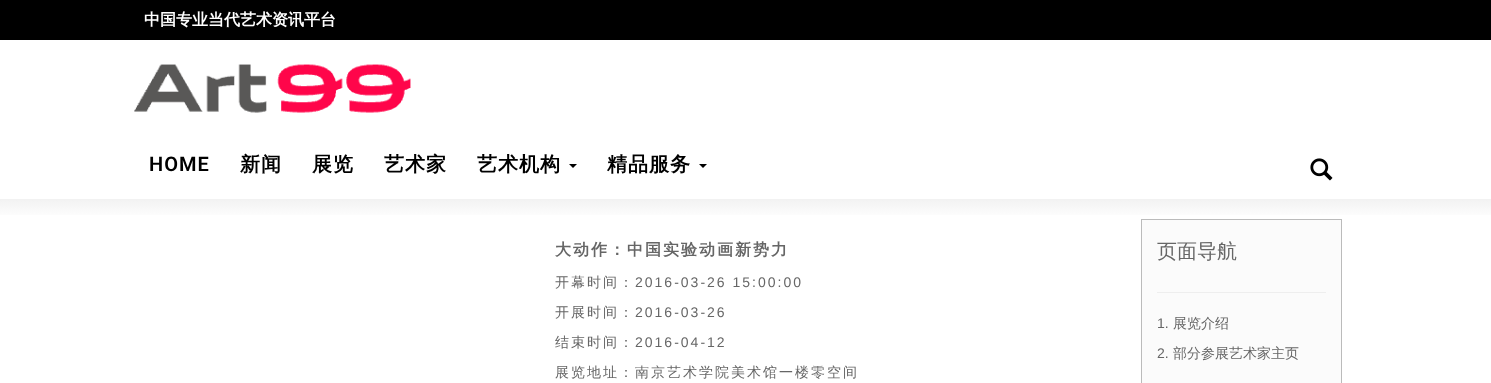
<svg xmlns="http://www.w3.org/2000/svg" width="1491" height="383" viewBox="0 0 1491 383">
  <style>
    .t1 { font: bold 16px WenQuanYi Zen Hei; fill: #fff; }
    .t2 { font: 600 20px Roboto; letter-spacing: 1px; fill: #000; }
    .t3 { font: bold 20px WenQuanYi Zen Hei; letter-spacing: 1px; fill: #000; }
    .t4 { font: bold 16px WenQuanYi Zen Hei; letter-spacing: 2px; fill: #666; }
    .t5 { font: 500 14px WenQuanYi Zen Hei; letter-spacing: 2px; fill: #666; }
    .t6 { font: 14px Liberation Sans; letter-spacing: 2px; fill: #666; }
    .t7 { font: 500 20px WenQuanYi Zen Hei; fill: #666; }
    .t8 { font: 14px Liberation Sans; fill: #666; }
    .t9 { font: 500 14px WenQuanYi Zen Hei; fill: #666; }
  </style>
  <defs>
    <linearGradient id="g1" gradientUnits="userSpaceOnUse" x1="746" y1="219" x2="746" y2="199"><stop offset="0" stop-color="#fff"/><stop offset="1" stop-color="#f2f2f2"/></linearGradient>
  </defs>
  <rect width="100%" height="100%" fill="#fff"/>
  <rect x="0" y="0" width="1491" height="40" fill="#000"/>
  <text x="144" y="25" class="t1">中国专业当代艺术资讯平台</text>
  <image x="134" y="64" width="277" height="49" href="images/1.png"/>
  <text x="149" y="171" class="t2">HOME</text>
  <text x="240" y="171" class="t3">新闻</text>
  <text x="312" y="171" class="t3">展览</text>
  <text x="384" y="171" class="t3">艺术家</text>
  <text x="477" y="171" class="t3">艺术机构</text>
  <path d="M569 164H577L573 168Z" fill="#000"/>
  <text x="607" y="171" class="t3">精品服务</text>
  <path d="M699 164H707L703 168Z" fill="#000"/>
  <image x="1310" y="158" width="23" height="23" href="images/2.png"/>
  <rect x="0" y="199" width="1491" height="16" fill="url(#g1)"/>
  <text x="555" y="255" class="t4">大动作：中国实验动画新势力</text>
  <text x="555" y="287" class="t5">开幕时间：</text>
  <text x="635" y="287" class="t6">2016-03-26 15:00:00</text>
  <text x="555" y="317" class="t5">开展时间：</text>
  <text x="635" y="317" class="t6">2016-03-26</text>
  <text x="555" y="347" class="t5">结束时间：</text>
  <text x="635" y="347" class="t6">2016-04-12</text>
  <text x="555" y="377" class="t5">展览地址：南京艺术学院美术馆一楼零空间</text>
  <rect x="1141.5" y="219.5" width="200" height="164" fill="#fbfbfb" stroke="#bbb"/>
  <text x="1157" y="258" class="t7">页面导航</text>
  <rect x="1157" y="292" width="169" height="1" fill="#eee"/>
  <text x="1157" y="328" class="t8">1.</text>
  <text x="1173" y="328" class="t9">展览介绍</text>
  <text x="1157" y="358" class="t8">2.</text>
  <text x="1173" y="358" class="t9">部分参展艺术家主页</text>
</svg>
